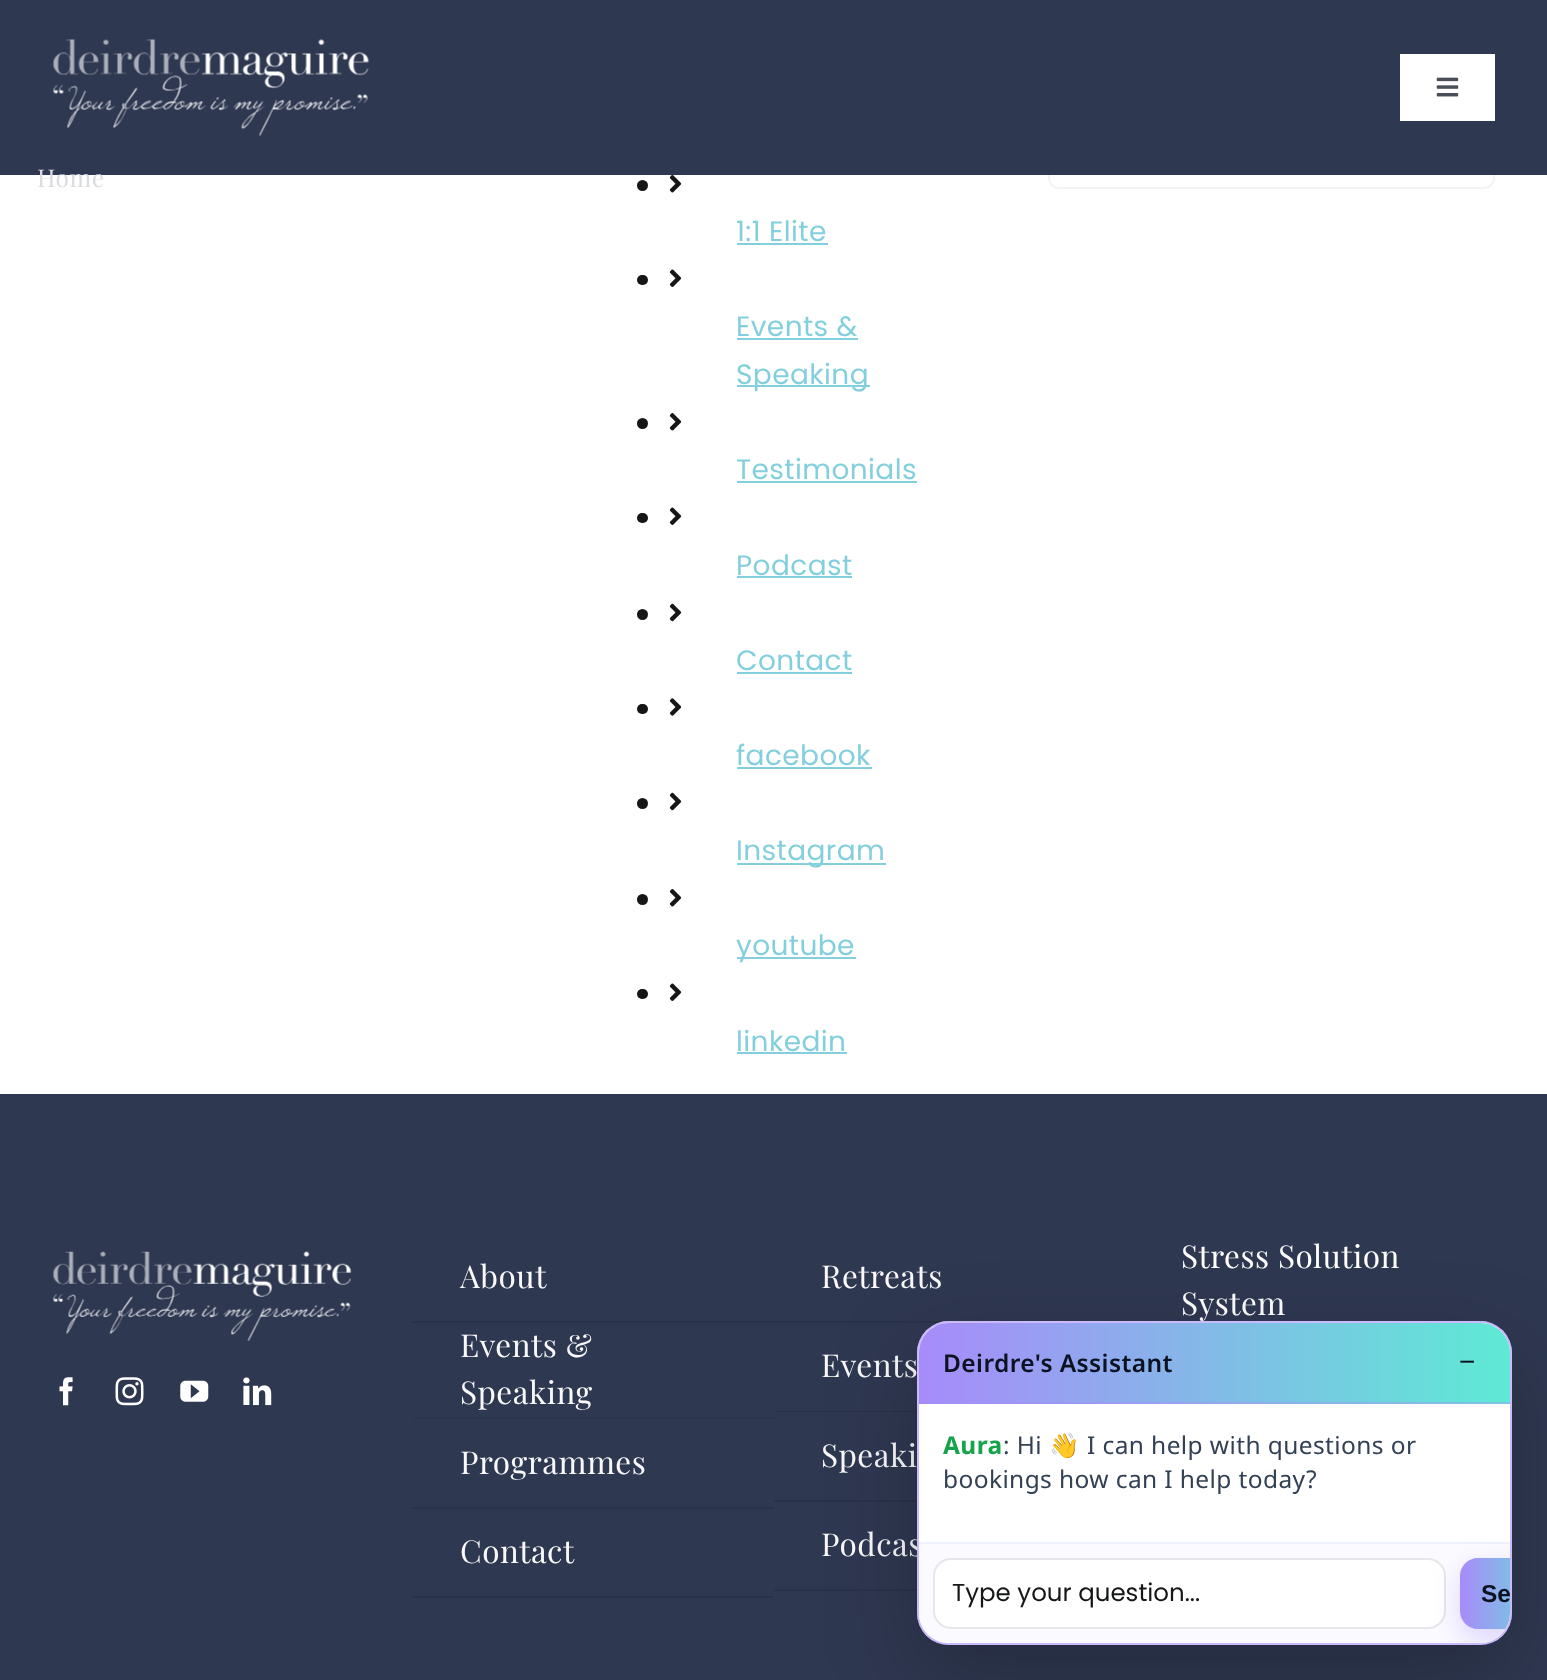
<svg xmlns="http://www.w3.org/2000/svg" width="1547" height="1680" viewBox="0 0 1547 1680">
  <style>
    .t1 { font: 24.5px Playfair Display; letter-spacing: 0.5px; fill: #dadce0; }
    .t2 { font: 28px Poppins; letter-spacing: 0.4px; fill: #83cfdd; }
    .t3 { font: 31.5px Playfair Display; letter-spacing: 0.5px; fill: #f9f9fb; }
    .t4 { font: 31.5px Playfair Display; letter-spacing: 0.5px; fill: #fff; }
    .t5 { font: 600 24.5px Noto Sans; letter-spacing: 0.4px; fill: #0b1220; }
    .t6 { font: 28px Liberation Sans; fill: #0b1220; }
    .t7 { font: bold 24.5px Noto Sans; letter-spacing: 0.4px; fill: #16a34a; }
    .t8 { font: 24.5px Noto Sans; letter-spacing: 0.4px; fill: #334155; }
    .t9 { font: 24.5px Noto Color Emoji; letter-spacing: 0.4px; fill: #334155; }
    .t10 { font: 24.5px Poppins; fill: #141617; }
    .t11 { font: bold 24.5px Liberation Sans; fill: #0b1220; }
  </style>
  <defs>
    <linearGradient id="g1" gradientUnits="userSpaceOnUse" x1="919" y1="1362" x2="1510" y2="1362"><stop offset="0" stop-color="#a78bfa"/><stop offset="1" stop-color="#5eead4"/></linearGradient>
    <clipPath id="clip1"><rect x="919" y="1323" width="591" height="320" rx="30"/></clipPath>
    <clipPath id="clip2"><rect x="919" y="1323" width="591" height="320" rx="30"/></clipPath>
    <linearGradient id="g2" gradientUnits="userSpaceOnUse" x1="1460" y1="1593" x2="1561" y2="1593"><stop offset="0" stop-color="#a78bfa"/><stop offset="1" stop-color="#5eead4"/></linearGradient>
  </defs>
  <rect width="100%" height="100%" fill="#fff"/>
  <rect x="1049" y="103" width="445" height="85" rx="10" fill="none" stroke="#f2f3f5" stroke-width="2"/>
  <rect x="0" y="0" width="1547" height="175" fill="#2f3851"/>
  <image x="53" y="39" width="316" height="97" href="images/1.png"/>
  <rect x="1400" y="54" width="95" height="67" fill="#fff"/>
  <image x="1436" y="77" width="23" height="20" href="images/2.png"/>
  <text x="37" y="187" class="t1">Home</text>
  <circle cx="642.5" cy="185.5" r="5.5" fill="#141617"/>
  <image x="669" y="175" width="13" height="18" href="images/3.png"/>
  <text x="736" y="241" class="t2">1:1 Elite</text>
  <rect x="737" y="243" width="91" height="2" fill="#83cfdd"/>
  <rect x="637" y="275" width="11" height="10" rx="5" fill="#141617"/>
  <image x="669" y="269" width="13" height="18" href="images/4.png"/>
  <text x="736" y="336" class="t2">Events &amp;</text>
  <rect x="737" y="338" width="121" height="2" fill="#83cfdd"/>
  <rect x="737" y="385" width="133" height="2" fill="#83cfdd"/>
  <text x="736" y="384" class="t2">Speaking</text>
  <circle cx="642.5" cy="423.5" r="5.5" fill="#141617"/>
  <image x="669" y="413" width="13" height="18" href="images/3.png"/>
  <text x="736" y="479" class="t2">Testimonials</text>
  <rect x="737" y="481" width="180" height="2" fill="#83cfdd"/>
  <rect x="637" y="513" width="11" height="10" rx="5" fill="#141617"/>
  <image x="669" y="507" width="13" height="18" href="images/4.png"/>
  <text x="736" y="575" class="t2">Podcast</text>
  <rect x="737" y="576" width="115" height="2" fill="#83cfdd"/>
  <circle cx="642.5" cy="614.5" r="5.5" fill="#141617"/>
  <image x="669" y="603" width="13" height="19" href="images/5.png"/>
  <text x="736" y="670" class="t2">Contact</text>
  <rect x="737" y="672" width="115" height="2" fill="#83cfdd"/>
  <rect x="637" y="704" width="11" height="10" rx="5" fill="#141617"/>
  <image x="669" y="698" width="13" height="18" href="images/6.png"/>
  <text x="736" y="765" class="t2">facebook</text>
  <rect x="737" y="767" width="135" height="2" fill="#83cfdd"/>
  <circle cx="642.5" cy="803.5" r="5.5" fill="#141617"/>
  <image x="669" y="792" width="13" height="19" href="images/5.png"/>
  <rect x="737" y="863" width="149" height="2" fill="#83cfdd"/>
  <text x="736" y="860" class="t2">Instagram</text>
  <circle cx="642.5" cy="899.5" r="5.5" fill="#141617"/>
  <image x="669" y="889" width="13" height="18" href="images/3.png"/>
  <rect x="737" y="957" width="119" height="2" fill="#83cfdd"/>
  <text x="736" y="955" class="t2">youtube</text>
  <rect x="637" y="989" width="11" height="10" rx="5" fill="#141617"/>
  <image x="669" y="983" width="13" height="18" href="images/4.png"/>
  <text x="736" y="1051" class="t2">linkedin</text>
  <rect x="737" y="1052" width="110" height="2" fill="#83cfdd"/>
  <rect x="0" y="1094" width="1547" height="586" fill="#2f3851"/>
  <image x="53" y="1251" width="299" height="90" href="images/7.png"/>
  <image x="59" y="1377" width="14" height="29" href="images/8.png"/>
  <image x="115" y="1377" width="29" height="29" href="images/9.png"/>
  <image x="180" y="1380" width="29" height="22" href="images/10.png"/>
  <image x="243" y="1377" width="29" height="29" href="images/11.png"/>
  <rect x="413" y="1321" width="536" height="2" fill="#2a3249"/>
  <text x="460" y="1288" class="t3">About</text>
  <rect x="413" y="1418" width="361" height="1" fill="#2a3249"/>
  <text x="460" y="1357" class="t3">Events &amp;</text>
  <text x="460" y="1404" class="t3">Speaking</text>
  <rect x="413" y="1507" width="361" height="2" fill="#2a3249"/>
  <text x="460" y="1474" class="t3">Programmes</text>
  <rect x="413" y="1596" width="361" height="2" fill="#2a3249"/>
  <text x="460" y="1563" class="t3">Contact</text>
  <text x="821" y="1288" class="t3">Retreats</text>
  <rect x="774" y="1411" width="143" height="1" fill="#2a3249"/>
  <text x="821" y="1377" class="t3">Events</text>
  <rect x="774" y="1500" width="143" height="2" fill="#2a3249"/>
  <text x="821" y="1467" class="t3">Speaki</text>
  <rect x="774" y="1589" width="143" height="2" fill="#2a3249"/>
  <text x="821" y="1556" class="t3">Podcas</text>
  <text x="1181" y="1268" class="t4">Stress Solution</text>
  <text x="1181" y="1315" class="t4">System</text>
  <rect x="917" y="1353" width="595" height="324" rx="32" fill="#00000038" filter="blur(44px)"/>
  <rect x="917" y="1321" width="595" height="324" rx="32" fill="#fff"/>
  <rect x="918" y="1322" width="593" height="322" rx="31" fill="none" stroke="#a78bfa99" stroke-width="2"/>
  <path d="M949 1323H1480C1496.5 1323 1510 1336.5 1510 1353V1404H919V1353C919 1336.5 932.5 1323 949 1323Z" fill="url(#g1)"/>
  <rect x="959" y="1402" width="551" height="2" fill="#a78bfa66"/>
  <text x="943" y="1372" class="t5">Deirdre's Assistant</text>
  <text x="1459" y="1371" class="t6">−</text>
  <text x="943" y="1454" class="t7">Aura</text>
  <text x="1003" y="1454" class="t8">: Hi</text>
  <text x="1049" y="1454" class="t9">👋</text>
  <text x="1087" y="1454" class="t8">I can help with questions or</text>
  <text x="943" y="1488" class="t8">bookings how can I help today?</text>
  <path d="M919 1542H1510V1613C1510 1629.5 1496.5 1643 1480 1643H949C932.5 1643 919 1629.5 919 1613Z" fill="#fbfbff"/>
  <rect x="919" y="1542" width="591" height="2" fill="#eef2ff"/>
  <rect x="934" y="1559" width="511" height="69" rx="17" fill="#fff" stroke="#e5e7eb" stroke-width="2"/>
  <text x="952" y="1601" class="t10">Type your question...</text>
  <g clip-path="url(#clip1)">
    <rect x="1460" y="1568" width="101" height="72" rx="18" fill="#a78bfa59" filter="blur(14px)"/>
  </g>
  <g clip-path="url(#clip2)">
    <path d="M1478 1558H1510V1629H1478C1468 1629 1460 1621 1460 1611V1576C1460 1566 1468 1558 1478 1558Z" fill="url(#g2)"/>
  </g>
  <text x="1481" y="1602" class="t11">Se</text>
</svg>
